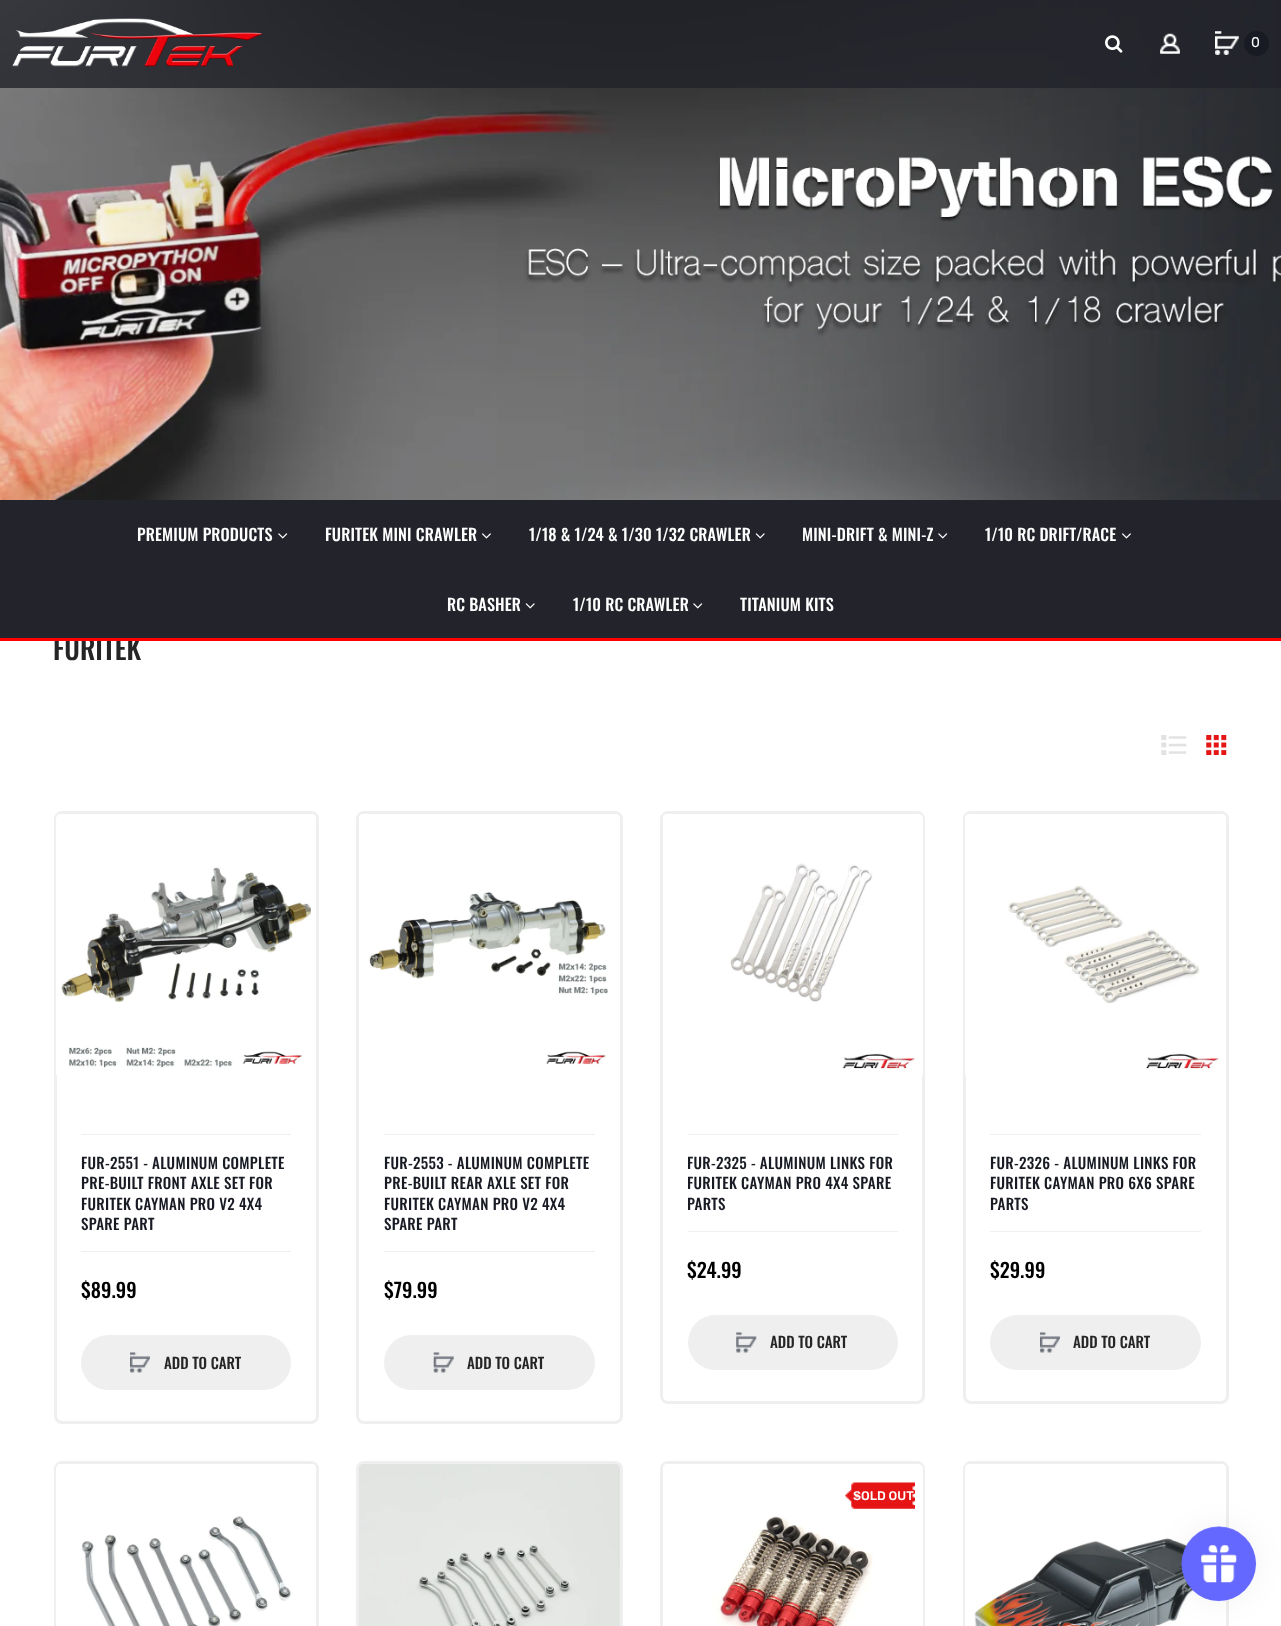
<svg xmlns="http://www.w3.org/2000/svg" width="1281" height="1626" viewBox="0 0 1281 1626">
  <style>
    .t1 { font: 14px Rubik; fill: #fff; }
    .t2 { font: 500 27.5px Oswald; fill: #252525; }
    .t3 { font: 500 16.25px Oswald; letter-spacing: 0.15px; fill: #fff; }
    .t4 { font: 500 15px Oswald; letter-spacing: 0.3px; fill: #181b23; }
    .t5 { font: 500 20px Oswald; fill: #000; }
    .t6 { font: 500 15px Oswald; fill: #252525; }
    .t7 { font: 500 12.5px Rubik; fill: #fff; }
  </style>
  <defs>
    <clipPath id="clip1"><rect x="688" y="1153" width="210" height="61"/></clipPath>
  </defs>
  <rect width="100%" height="100%" fill="#fff"/>
  <image x="0" y="0" width="1281" height="500" href="images/8.png"/>
  <rect x="0" y="0" width="1281" height="88" fill="#22232bcc"/>
  <image x="12" y="18" width="251" height="49" href="images/1.png"/>
  <image x="1105" y="35" width="18" height="18" href="images/2.png"/>
  <image x="1160" y="33" width="20" height="21" href="images/3.png"/>
  <image x="1215" y="31" width="24" height="24" href="images/4.png"/>
  <circle cx="1256.5" cy="43.5" r="12.5" fill="#181b23"/>
  <text x="1251" y="47" class="t1">0</text>
  <text x="53" y="660" class="t2">FURITEK</text>
  <rect x="0" y="500" width="1281" height="138" fill="#22232b"/>
  <text x="137" y="541" class="t3">PREMIUM PRODUCTS</text>
  <image x="278" y="533" width="10" height="6" href="images/5.png"/>
  <text x="325" y="541" class="t3">FURITEK MINI CRAWLER</text>
  <image x="482" y="533" width="9" height="6" href="images/6.png"/>
  <text x="529" y="541" class="t3">1/18 &amp; 1/24 &amp; 1/30 1/32 CRAWLER</text>
  <image x="755" y="533" width="10" height="6" href="images/7.png"/>
  <text x="802" y="541" class="t3">MINI-DRIFT &amp; MINI-Z</text>
  <image x="938" y="533" width="10" height="6" href="images/5.png"/>
  <text x="985" y="541" class="t3">1/10 RC DRIFT/RACE</text>
  <image x="1122" y="533" width="9" height="6" href="images/6.png"/>
  <text x="447" y="611" class="t3">RC BASHER</text>
  <image x="525" y="603" width="10" height="6" href="images/7.png"/>
  <text x="573" y="611" class="t3">1/10 RC CRAWLER</text>
  <image x="693" y="603" width="10" height="6" href="images/5.png"/>
  <text x="740" y="611" class="t3">TITANIUM KITS</text>
  <rect x="0" y="638" width="1281" height="3" fill="#f00"/>
  <image x="1161" y="735" width="26" height="20" href="images/9.png"/>
  <image x="1206" y="735" width="21" height="20" href="images/10.png"/>
  <rect x="55.5" y="812.5" width="262" height="610" rx="6.5" fill="none" stroke="#efefef" stroke-width="3"/>
  <path d="M61 814H311C314 814 316 816 316 819V1075H56V819C56 816 58 814 61 814Z" fill="#fff"/>
  <image x="57" y="814" width="259" height="254" href="images/11.png"/>
  <rect x="81" y="1134" width="210" height="1" fill="#efefef"/>
  <rect x="81" y="1251" width="210" height="1" fill="#efefef"/>
  <text x="81" y="1169" class="t4">FUR-2551 - ALUMINUM COMPLETE</text>
  <text x="81" y="1189" class="t4">PRE-BUILT FRONT AXLE SET FOR</text>
  <text x="81" y="1210" class="t4">FURITEK CAYMAN PRO V2 4X4</text>
  <text x="81" y="1230" class="t4">SPARE PART</text>
  <text x="81" y="1298" class="t5">$89.99</text>
  <rect x="81" y="1335" width="210" height="55" rx="27.5" fill="#efefef"/>
  <image x="130" y="1352" width="20" height="21" href="images/12.png"/>
  <text x="164" y="1369" class="t6">ADD TO CART</text>
  <rect x="357.5" y="812.5" width="264" height="610" rx="6.5" fill="none" stroke="#efefef" stroke-width="3"/>
  <path d="M364 814H615C618 814 620 816 620 819V1075H359V819C359 816 361 814 364 814Z" fill="#fff"/>
  <image x="359" y="814" width="259" height="251" href="images/13.png"/>
  <rect x="384" y="1134" width="211" height="1" fill="#efefef"/>
  <rect x="384" y="1251" width="211" height="1" fill="#efefef"/>
  <text x="384" y="1169" class="t4">FUR-2553 - ALUMINUM COMPLETE</text>
  <text x="384" y="1189" class="t4">PRE-BUILT REAR AXLE SET FOR</text>
  <text x="384" y="1210" class="t4">FURITEK CAYMAN PRO V2 4X4</text>
  <text x="384" y="1230" class="t4">SPARE PART</text>
  <text x="384" y="1298" class="t5">$79.99</text>
  <rect x="384" y="1335" width="211" height="55" rx="27.5" fill="#efefef"/>
  <image x="433" y="1352" width="21" height="21" href="images/14.png"/>
  <text x="467" y="1369" class="t6">ADD TO CART</text>
  <rect x="661.5" y="812.5" width="262" height="590" rx="6.5" fill="none" stroke="#efefef" stroke-width="3"/>
  <path d="M668 814H918C921 814 923 816 923 819V1075H663V819C663 816 665 814 668 814Z" fill="#fff"/>
  <image x="663" y="814" width="252" height="255" href="images/15.png"/>
  <rect x="688" y="1134" width="210" height="1" fill="#efefef"/>
  <rect x="688" y="1231" width="210" height="1" fill="#efefef"/>
  <g clip-path="url(#clip1)">
    <text x="687" y="1169" class="t4">FUR-2325 - ALUMINUM LINKS FOR</text>
    <text x="687" y="1189" class="t4">FURITEK CAYMAN PRO 4X4 SPARE</text>
    <text x="687" y="1210" class="t4">PARTS</text>
  </g>
  <text x="687" y="1278" class="t5">$24.99</text>
  <rect x="688" y="1315" width="210" height="55" rx="27.5" fill="#efefef"/>
  <image x="736" y="1332" width="21" height="21" href="images/16.png"/>
  <text x="770" y="1348" class="t6">ADD TO CART</text>
  <rect x="964.5" y="812.5" width="263" height="590" rx="6.5" fill="none" stroke="#efefef" stroke-width="3"/>
  <path d="M970 814H1221C1224 814 1226 816 1226 819V1075H965V819C965 816 967 814 970 814Z" fill="#fff"/>
  <image x="965" y="814" width="261" height="255" href="images/17.png"/>
  <rect x="990" y="1134" width="211" height="1" fill="#efefef"/>
  <rect x="990" y="1231" width="211" height="1" fill="#efefef"/>
  <text x="990" y="1169" class="t4">FUR-2326 - ALUMINUM LINKS FOR</text>
  <text x="990" y="1189" class="t4">FURITEK CAYMAN PRO 6X6 SPARE</text>
  <text x="990" y="1210" class="t4">PARTS</text>
  <text x="990" y="1278" class="t5">$29.99</text>
  <rect x="990" y="1315" width="211" height="55" rx="27.5" fill="#efefef"/>
  <image x="1040" y="1332" width="20" height="21" href="images/18.png"/>
  <text x="1073" y="1348" class="t6">ADD TO CART</text>
  <rect x="55.5" y="1462.5" width="262" height="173" rx="6.5" fill="none" stroke="#efefef" stroke-width="3"/>
  <path d="M61 1464H311C314 1464 316 1466 316 1469V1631H56V1469C56 1466 58 1464 61 1464Z" fill="#fff"/>
  <image x="57" y="1464" width="259" height="162" href="images/19.png"/>
  <rect x="357.5" y="1462.5" width="264" height="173" rx="6.5" fill="none" stroke="#efefef" stroke-width="3"/>
  <image x="359" y="1464" width="261" height="162" href="images/20.png"/>
  <rect x="661.5" y="1462.5" width="262" height="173" rx="6.5" fill="none" stroke="#efefef" stroke-width="3"/>
  <path d="M668 1464H918C921 1464 923 1466 923 1469V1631H663V1469C663 1466 665 1464 668 1464Z" fill="#fff"/>
  <image x="663" y="1464" width="210" height="162" href="images/21.png"/>
  <image x="845" y="1482" width="70" height="27" href="images/22.png"/>
  <text x="853" y="1500" class="t7">SOLD OUT</text>
  <rect x="964.5" y="1462.5" width="263" height="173" rx="6.5" fill="none" stroke="#efefef" stroke-width="3"/>
  <image x="965" y="1464" width="261" height="162" href="images/23.png"/>
  <rect x="1181" y="1526" width="75" height="75" rx="37.5" fill="#0000000d" filter="blur(15.5px)"/>
  <image x="1181" y="1526" width="76" height="76" href="images/24.png"/>
</svg>
